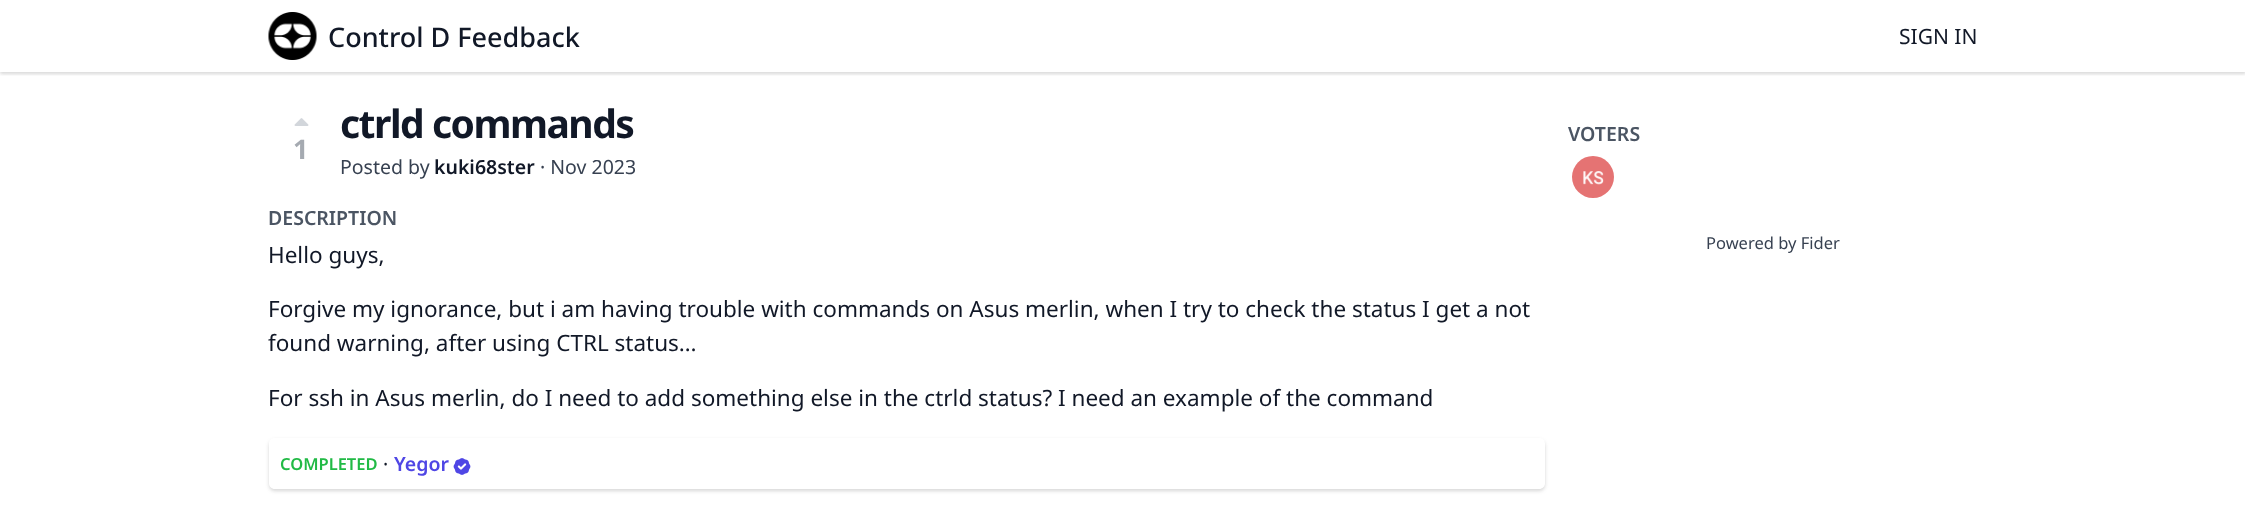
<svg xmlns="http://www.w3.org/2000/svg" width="2245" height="509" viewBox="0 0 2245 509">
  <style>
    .t1 { font: 500 27px Noto Sans; fill: #111827; }
    .t2 { font: 21px Noto Sans; fill: #111827; }
    .t3 { font: bold 27px Noto Sans; fill: #a5aab1; }
    .t4 { font: bold 39px Noto Sans; letter-spacing: -1.5px; fill: #111827; }
    .t5 { font: 19.5px Noto Sans; fill: #374151; }
    .t6 { font: 600 19.5px Noto Sans; fill: #111827; }
    .t7 { font: 600 19.5px Noto Sans; fill: #4b5563; }
    .t8 { font: 22.5px Noto Sans; fill: #111827; }
    .t9 { font: 600 16.5px Noto Sans; fill: #21ba45; }
    .t10 { font: 19.5px Noto Sans; fill: #111827; }
    .t11 { font: 600 19.5px Noto Sans; fill: #4f46e5; }
    .t12 { font: 16.5px Noto Sans; fill: #374151; }
  </style>
  <defs>
    <clipPath id="clip1"><rect x="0" y="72" width="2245" height="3"/></clipPath>
    <clipPath id="clip2"><rect x="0" y="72" width="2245" height="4"/></clipPath>
    <clipPath id="clip3"><path d="M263 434H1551V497H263ZM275 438H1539C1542.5 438 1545 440.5 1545 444V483C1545 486.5 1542.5 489 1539 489H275C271.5 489 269 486.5 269 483V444C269 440.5 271.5 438 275 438Z" clip-rule="evenodd"/></clipPath>
    <clipPath id="clip4"><path d="M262 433H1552V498H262ZM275 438H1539C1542.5 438 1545 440.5 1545 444V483C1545 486.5 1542.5 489 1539 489H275C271.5 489 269 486.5 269 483V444C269 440.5 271.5 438 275 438Z" clip-rule="evenodd"/></clipPath>
  </defs>
  <rect width="100%" height="100%" fill="#fff"/>
  <g clip-path="url(#clip1)">
    <rect x="0" y="2" width="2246" height="72" fill="#0000000f" filter="blur(1.5px)"/>
  </g>
  <g clip-path="url(#clip2)">
    <rect x="0" y="2" width="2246" height="72" fill="#0000001a" filter="blur(2px)"/>
  </g>
  <image x="268" y="12" width="49" height="48" href="images/1.png"/>
  <text x="328" y="47" class="t1">Control D Feedback</text>
  <text x="1899" y="44" class="t2">SIGN IN</text>
  <image x="294" y="118" width="15" height="8" href="images/2.png"/>
  <text x="293" y="159" class="t3">1</text>
  <text x="340" y="138" class="t4">ctrld commands</text>
  <text x="340" y="174" class="t5">Posted by</text>
  <text x="434" y="174" class="t6">kuki68ster</text>
  <text x="540" y="174" class="t5">· Nov 2023</text>
  <text x="268" y="225" class="t7">DESCRIPTION</text>
  <text x="268" y="263" class="t8">Hello guys,</text>
  <text x="268" y="317" class="t8">Forgive my ignorance, but i am having trouble with commands on Asus merlin, when I try to check the status I get a not</text>
  <text x="268" y="351" class="t8">found warning, after using CTRL status…</text>
  <text x="268" y="406" class="t8">For ssh in Asus merlin, do I need to add something else in the ctrld status? I need an example of the command</text>
  <g clip-path="url(#clip3)">
    <rect x="269" y="440" width="1276" height="51" rx="6" fill="#0000000f" filter="blur(1.5px)"/>
  </g>
  <g clip-path="url(#clip4)">
    <rect x="269" y="440" width="1276" height="51" rx="6" fill="#0000001a" filter="blur(2px)"/>
  </g>
  <text x="280" y="470" class="t9">COMPLETED</text>
  <text x="383" y="471" class="t10">·</text>
  <text x="394" y="471" class="t11">Yegor</text>
  <image x="453" y="458" width="18" height="17" href="images/3.png"/>
  <text x="1568" y="141" class="t7">VOTERS</text>
  <image x="1572" y="156" width="42" height="42" href="images/4.png"/>
  <text x="1706" y="249" class="t12">Powered by Fider</text>
</svg>
